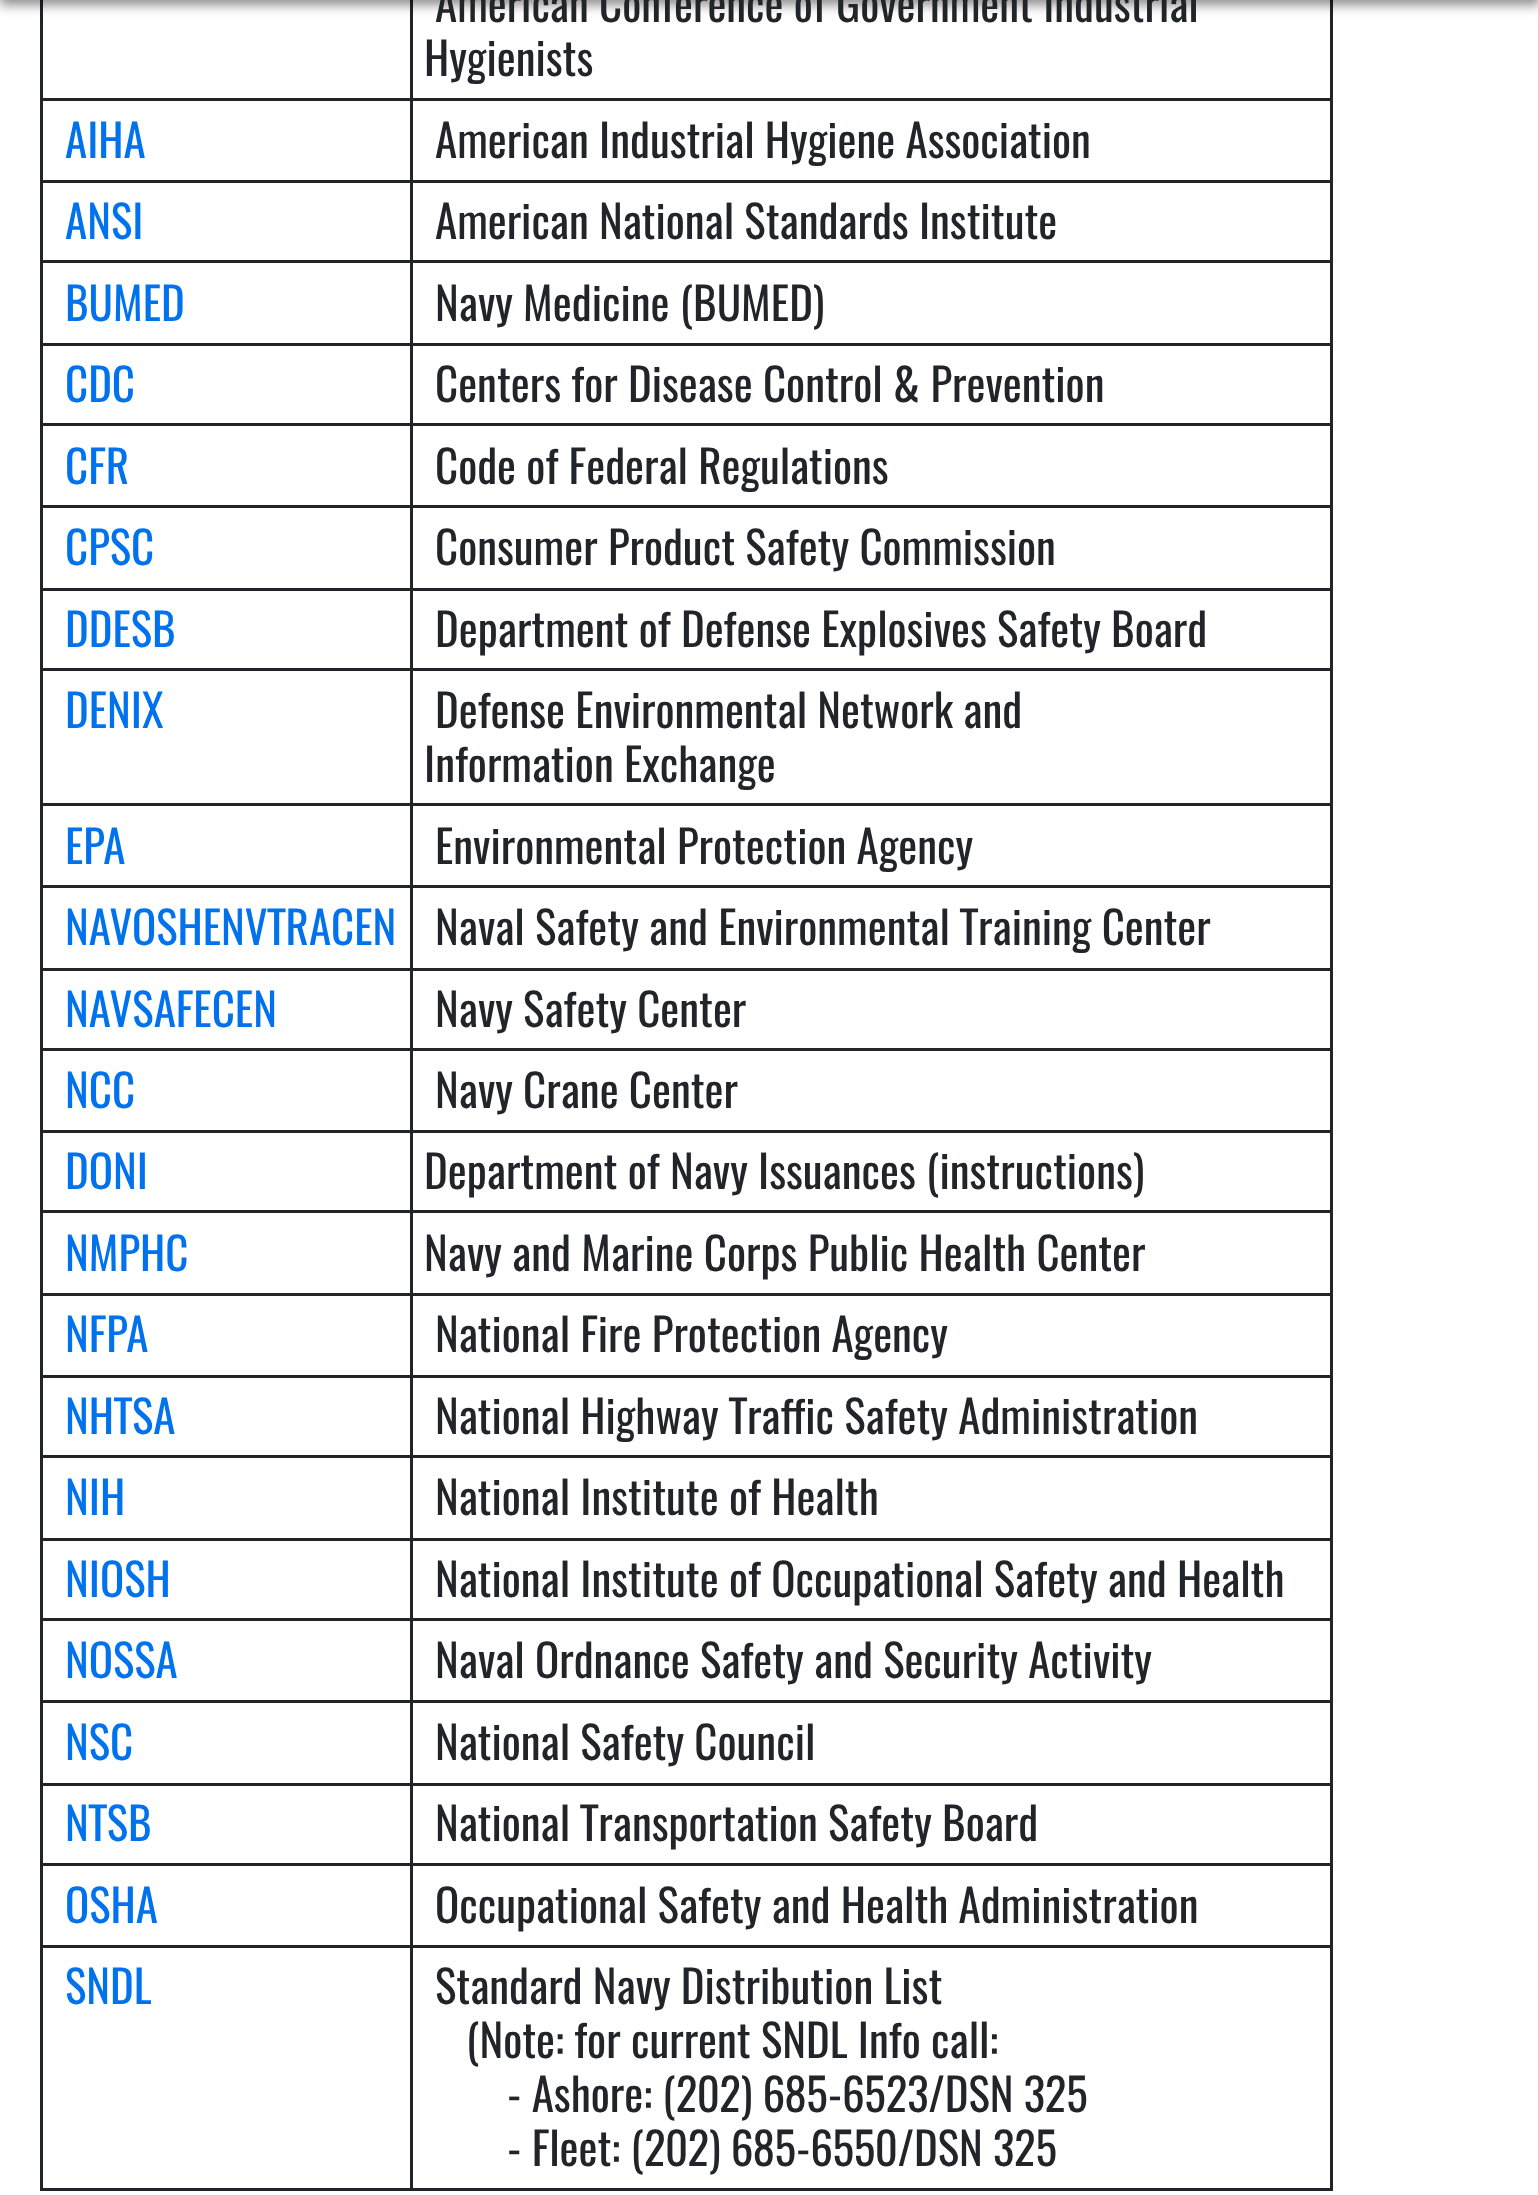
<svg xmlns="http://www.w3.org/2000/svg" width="1538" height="2195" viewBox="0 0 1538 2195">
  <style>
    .t1 { font: 45px Oswald; fill: #212529; }
    .t2 { font: 45px Oswald; fill: #0072ed; }
  </style>
  <rect width="100%" height="100%" fill="#fff"/>
  <rect x="1330" y="0" width="3" height="2190" fill="#212529"/>
  <rect x="40" y="2188" width="1293" height="3" fill="#212529"/>
  <rect x="40" y="0" width="3" height="2190" fill="#212529"/>
  <rect x="40" y="98" width="1293" height="3" fill="#212529"/>
  <rect x="40" y="180" width="1293" height="3" fill="#212529"/>
  <rect x="40" y="260" width="1293" height="3" fill="#212529"/>
  <rect x="40" y="343" width="1293" height="3" fill="#212529"/>
  <rect x="40" y="423" width="1293" height="3" fill="#212529"/>
  <rect x="40" y="505" width="1293" height="3" fill="#212529"/>
  <rect x="40" y="588" width="1293" height="3" fill="#212529"/>
  <rect x="40" y="668" width="1293" height="3" fill="#212529"/>
  <rect x="40" y="803" width="1293" height="3" fill="#212529"/>
  <rect x="40" y="885" width="1293" height="3" fill="#212529"/>
  <rect x="40" y="968" width="1293" height="3" fill="#212529"/>
  <rect x="40" y="1048" width="1293" height="3" fill="#212529"/>
  <rect x="40" y="1130" width="1293" height="3" fill="#212529"/>
  <rect x="40" y="1210" width="1293" height="3" fill="#212529"/>
  <rect x="40" y="1293" width="1293" height="3" fill="#212529"/>
  <rect x="40" y="1375" width="1293" height="3" fill="#212529"/>
  <rect x="40" y="1455" width="1293" height="3" fill="#212529"/>
  <rect x="40" y="1538" width="1293" height="3" fill="#212529"/>
  <rect x="40" y="1618" width="1293" height="3" fill="#212529"/>
  <rect x="40" y="1700" width="1293" height="3" fill="#212529"/>
  <rect x="40" y="1783" width="1293" height="3" fill="#212529"/>
  <rect x="40" y="1863" width="1293" height="3" fill="#212529"/>
  <rect x="40" y="1945" width="1293" height="3" fill="#212529"/>
  <rect x="410" y="0" width="3" height="2190" fill="#212529"/>
  <rect x="0" y="-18" width="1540" height="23" fill="#00000073" filter="blur(6px)"/>
  <text x="435" y="22" class="t1">American Conference of Government Industrial</text>
  <text x="424" y="76" class="t1">Hygienists</text>
  <text x="65" y="158" class="t2">AIHA</text>
  <text x="435" y="158" class="t1">American Industrial Hygiene Association</text>
  <text x="65" y="239" class="t2">ANSI</text>
  <text x="435" y="239" class="t1">American National Standards Institute</text>
  <text x="65" y="321" class="t2">BUMED</text>
  <text x="435" y="321" class="t1">Navy Medicine (BUMED)</text>
  <text x="65" y="402" class="t2">CDC</text>
  <text x="435" y="402" class="t1">Centers for Disease Control &amp; Prevention</text>
  <text x="65" y="484" class="t2">CFR</text>
  <text x="435" y="484" class="t1">Code of Federal Regulations</text>
  <text x="65" y="565" class="t2">CPSC</text>
  <text x="435" y="565" class="t1">Consumer Product Safety Commission</text>
  <text x="65" y="647" class="t2">DDESB</text>
  <text x="435" y="647" class="t1">Department of Defense Explosives Safety Board</text>
  <text x="65" y="728" class="t2">DENIX</text>
  <text x="435" y="728" class="t1">Defense Environmental Network and</text>
  <text x="424" y="782" class="t1">Information Exchange</text>
  <text x="65" y="864" class="t2">EPA</text>
  <text x="435" y="864" class="t1">Environmental Protection Agency</text>
  <text x="65" y="945" class="t2">NAVOSHENVTRACEN</text>
  <text x="435" y="945" class="t1">Naval Safety and Environmental Training Center</text>
  <text x="65" y="1027" class="t2">NAVSAFECEN</text>
  <text x="435" y="1027" class="t1">Navy Safety Center</text>
  <text x="65" y="1108" class="t2">NCC</text>
  <text x="435" y="1108" class="t1">Navy Crane Center</text>
  <text x="65" y="1189" class="t2">DONI</text>
  <text x="424" y="1189" class="t1">Department of Navy Issuances (instructions)</text>
  <text x="65" y="1271" class="t2">NMPHC</text>
  <text x="424" y="1271" class="t1">Navy and Marine Corps Public Health Center</text>
  <text x="65" y="1352" class="t2">NFPA</text>
  <text x="435" y="1352" class="t1">National Fire Protection Agency</text>
  <text x="65" y="1434" class="t2">NHTSA</text>
  <text x="435" y="1434" class="t1">National Highway Traffic Safety Administration</text>
  <text x="65" y="1515" class="t2">NIH</text>
  <text x="435" y="1515" class="t1">National Institute of Health</text>
  <text x="65" y="1597" class="t2">NIOSH</text>
  <text x="435" y="1597" class="t1">National Institute of Occupational Safety and Health</text>
  <text x="65" y="1678" class="t2">NOSSA</text>
  <text x="435" y="1678" class="t1">Naval Ordnance Safety and Security Activity</text>
  <text x="65" y="1760" class="t2">NSC</text>
  <text x="435" y="1760" class="t1">National Safety Council</text>
  <text x="65" y="1841" class="t2">NTSB</text>
  <text x="435" y="1841" class="t1">National Transportation Safety Board</text>
  <text x="65" y="1923" class="t2">OSHA</text>
  <text x="435" y="1923" class="t1">Occupational Safety and Health Administration</text>
  <text x="65" y="2004" class="t2">SNDL</text>
  <text x="435" y="2004" class="t1">Standard Navy Distribution List</text>
  <text x="466" y="2058" class="t1">(Note: for current SNDL Info call:</text>
  <text x="507" y="2112" class="t1">- Ashore: (202) 685-6523/DSN 325</text>
  <text x="507" y="2166" class="t1">- Fleet: (202) 685-6550/DSN 325</text>
</svg>
